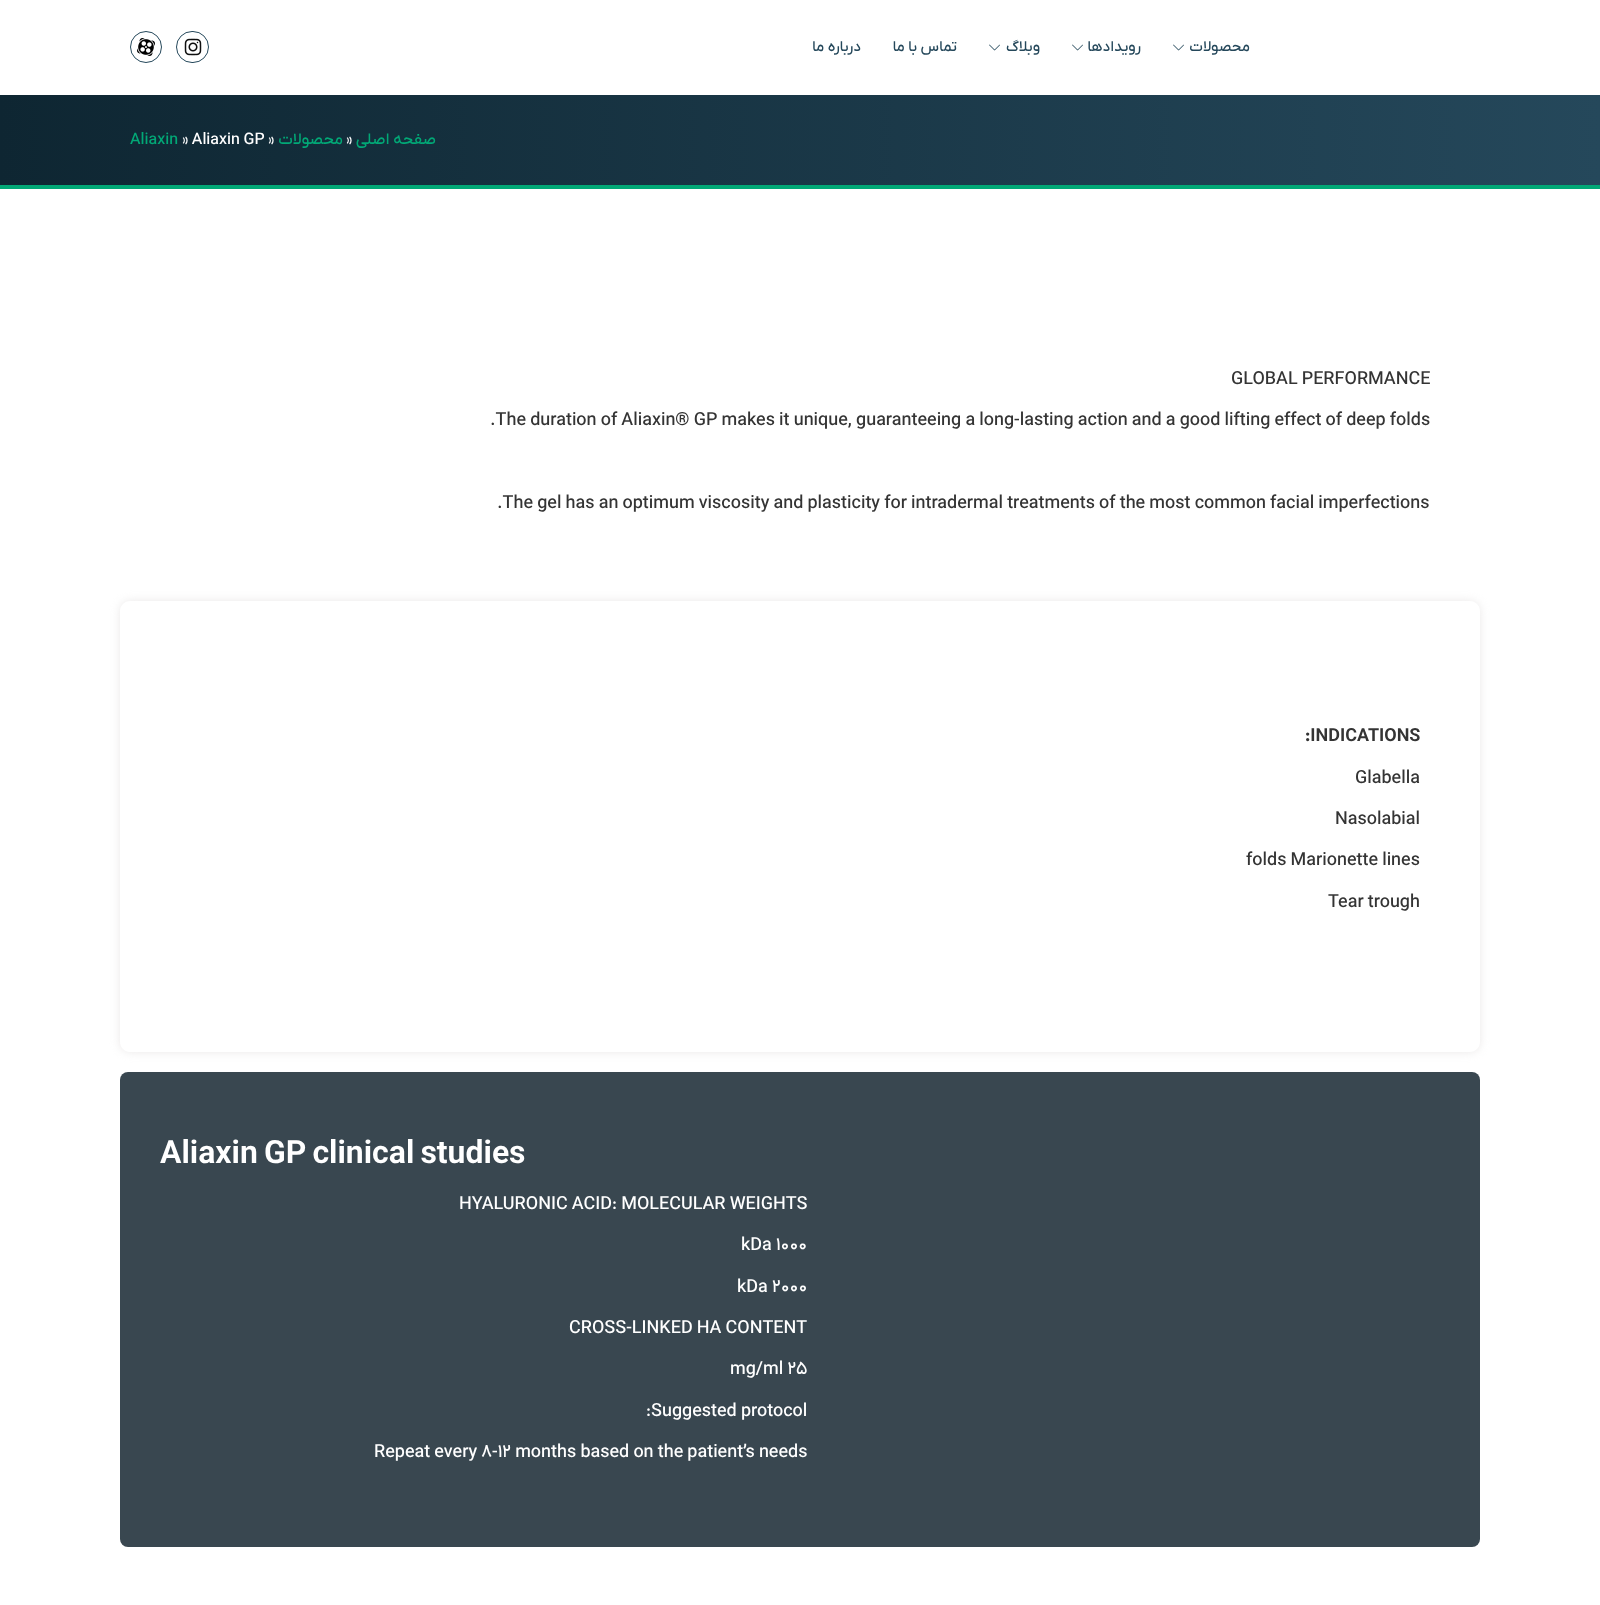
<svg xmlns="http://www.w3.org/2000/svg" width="1600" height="1605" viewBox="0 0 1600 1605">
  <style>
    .t1 { font: 500 15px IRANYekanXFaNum; direction: rtl; fill: #25485b; }
    .t2 { font: 500 16px IRANYekanXFaNum; fill: #02a876; }
    .t3 { font: 500 16px IRANYekanXFaNum; fill: #fff; }
    .t4 { font: 500 16px IRANYekanXFaNum; direction: rtl; fill: #02a876; }
    .t5 { font: 500 18px IRANYekanXFaNum; fill: #343434; }
    .t6 { font: bold 18px IRANYekanXFaNum; fill: #343434; }
    .t7 { font: bold 32px IRANYekanXFaNum; fill: #fff; }
    .t8 { font: 500 18px IRANYekanXFaNum; fill: #fff; }
  </style>
  <defs>
    <linearGradient id="g1" gradientUnits="userSpaceOnUse" x1="0" y1="140" x2="1600" y2="140"><stop offset="0" stop-color="#0e2632"/><stop offset="1" stop-color="#25485b"/></linearGradient>
    <clipPath id="clip1"><path d="M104 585H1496V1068H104ZM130 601H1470C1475.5 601 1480 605.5 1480 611V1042C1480 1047.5 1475.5 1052 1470 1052H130C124.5 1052 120 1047.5 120 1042V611C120 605.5 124.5 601 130 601Z" clip-rule="evenodd"/></clipPath>
  </defs>
  <rect width="100%" height="100%" fill="#fff"/>
  <circle cx="146" cy="47" r="15.5" fill="none" stroke="#25485b"/>
  <image x="137" y="38" width="18" height="18" href="images/1.png"/>
  <rect x="176.5" y="31.5" width="32" height="31" rx="15.5" fill="none" stroke="#25485b"/>
  <image x="184" y="38" width="18" height="18" href="images/2.png"/>
  <text x="861" y="51" class="t1">درباره ما</text>
  <text x="957" y="51" class="t1">تماس با ما</text>
  <image x="989" y="44" width="11" height="7" href="images/3.png"/>
  <text x="1040" y="51" class="t1">وبلاگ</text>
  <image x="1072" y="44" width="11" height="7" href="images/3.png"/>
  <text x="1141" y="51" class="t1">رویدادها</text>
  <image x="1173" y="44" width="11" height="7" href="images/3.png"/>
  <text x="1250" y="51" class="t1">محصولات</text>
  <rect x="0" y="95" width="1600" height="90" fill="url(#g1)"/>
  <rect x="0" y="185" width="1600" height="4" fill="#02a876"/>
  <text x="130" y="144" class="t2">Aliaxin</text>
  <text x="182" y="144" class="t3">» Aliaxin GP</text>
  <text x="268" y="144" class="t3">»</text>
  <text x="343" y="144" class="t4">محصولات</text>
  <text x="346" y="144" class="t3">»</text>
  <text x="436" y="144" class="t4">صفحه اصلی</text>
  <text x="1231" y="384" class="t5">GLOBAL PERFORMANCE</text>
  <text x="490" y="425" class="t5">.The duration of Aliaxin® GP makes it unique, guaranteeing a long-lasting action and a good lifting effect of deep folds</text>
  <text x="497" y="508" class="t5">.The gel has an optimum viscosity and plasticity for intradermal treatments of the most common facial imperfections</text>
  <g clip-path="url(#clip1)">
    <rect x="120" y="601" width="1360" height="451" rx="10" fill="#d5d1d180" filter="blur(5px)"/>
  </g>
  <text x="1305" y="741" class="t6">:INDICATIONS</text>
  <text x="1355" y="783" class="t5">Glabella</text>
  <text x="1335" y="824" class="t5">Nasolabial</text>
  <text x="1246" y="865" class="t5">folds Marionette lines</text>
  <text x="1328" y="907" class="t5">Tear trough</text>
  <rect x="120" y="1072" width="1360" height="475" rx="8" fill="#394750"/>
  <text x="160" y="1163" class="t7">Aliaxin GP clinical studies</text>
  <text x="459" y="1209" class="t8">HYALURONIC ACID: MOLECULAR WEIGHTS</text>
  <text x="741" y="1250" class="t8">kDa ۱۰۰۰</text>
  <text x="737" y="1292" class="t8">kDa ۲۰۰۰</text>
  <text x="569" y="1333" class="t8">CROSS-LINKED HA CONTENT</text>
  <text x="730" y="1374" class="t8">mg/ml ۲۵</text>
  <text x="646" y="1416" class="t8">:Suggested protocol</text>
  <text x="374" y="1457" class="t8">Repeat every 8-12 months based on the patient’s needs</text>
</svg>
